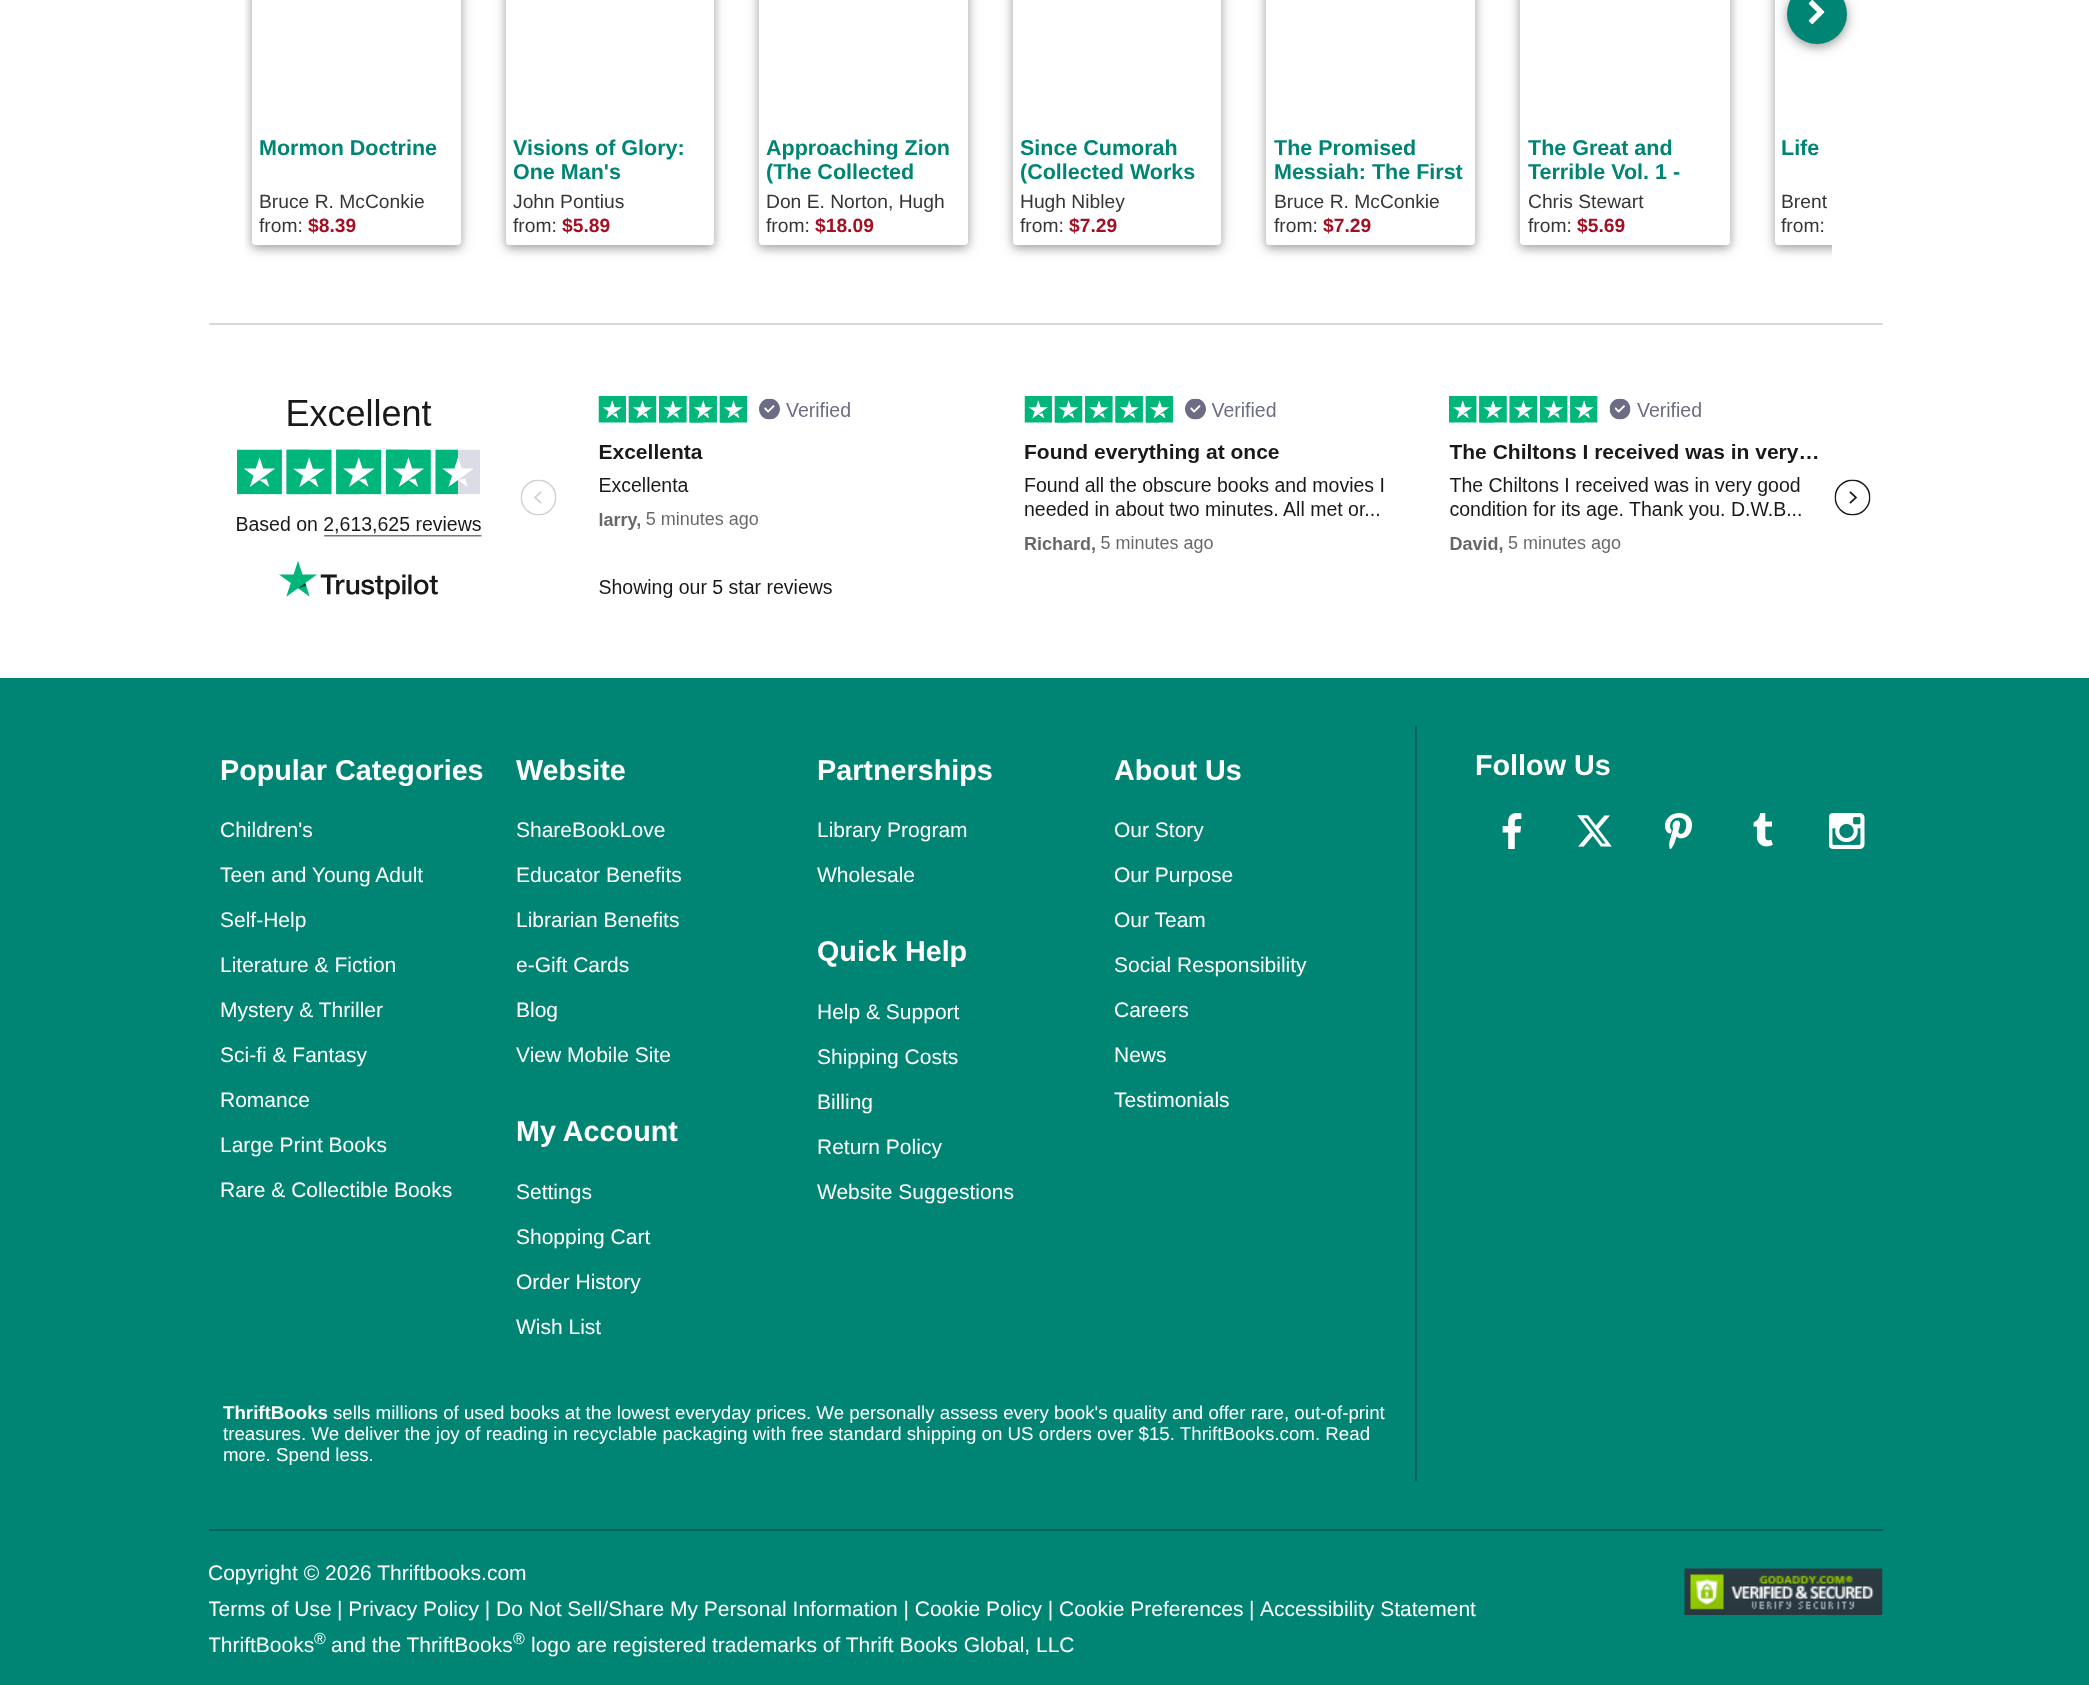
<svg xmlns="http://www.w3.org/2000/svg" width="2089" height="1685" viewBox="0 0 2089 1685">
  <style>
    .t1 { font: bold 21.5px Liberation Sans; fill: #008575; }
    .t2 { font: 19.25px Liberation Sans; fill: #363636; }
    .t3 { font: bold 19.25px Liberation Sans; fill: #a31023; }
    .t4 { font: bold 28.75px Liberation Sans; fill: #fff; }
    .t5 { font: 21px Liberation Sans; fill: #fff; }
    .t6 { font: bold 18.72px Liberation Sans; fill: #fff; }
    .t7 { font: 18.72px Liberation Sans; fill: #fff; }
    .t8 { font: 16px Liberation Sans; fill: #fff; }
  </style>
  <defs>
    <clipPath id="clip1"><rect x="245" y="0" width="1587" height="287"/></clipPath>
    <clipPath id="clip2"><path d="M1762 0H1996V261H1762ZM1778-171H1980C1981.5-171 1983-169.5 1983-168V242C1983 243.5 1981.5 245 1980 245H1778C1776.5 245 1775 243.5 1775 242V-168C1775-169.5 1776.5-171 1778-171Z" clip-rule="evenodd"/></clipPath>
    <clipPath id="clip3"><path d="M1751 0H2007V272H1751ZM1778-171H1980C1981.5-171 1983-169.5 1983-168V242C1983 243.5 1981.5 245 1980 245H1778C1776.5 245 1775 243.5 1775 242V-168C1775-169.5 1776.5-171 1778-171Z" clip-rule="evenodd"/></clipPath>
    <clipPath id="clip4"><path d="M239 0H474V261H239ZM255-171H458C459.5-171 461-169.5 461-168V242C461 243.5 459.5 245 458 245H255C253.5 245 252 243.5 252 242V-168C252-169.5 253.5-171 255-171Z" clip-rule="evenodd"/></clipPath>
    <clipPath id="clip5"><path d="M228 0H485V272H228ZM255-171H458C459.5-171 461-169.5 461-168V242C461 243.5 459.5 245 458 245H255C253.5 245 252 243.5 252 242V-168C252-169.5 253.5-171 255-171Z" clip-rule="evenodd"/></clipPath>
    <clipPath id="clip6"><path d="M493 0H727V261H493ZM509-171H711C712.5-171 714-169.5 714-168V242C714 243.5 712.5 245 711 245H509C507.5 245 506 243.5 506 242V-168C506-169.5 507.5-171 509-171Z" clip-rule="evenodd"/></clipPath>
    <clipPath id="clip7"><path d="M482 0H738V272H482ZM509-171H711C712.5-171 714-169.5 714-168V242C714 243.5 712.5 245 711 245H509C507.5 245 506 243.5 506 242V-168C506-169.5 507.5-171 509-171Z" clip-rule="evenodd"/></clipPath>
    <clipPath id="clip8"><path d="M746 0H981V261H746ZM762-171H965C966.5-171 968-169.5 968-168V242C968 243.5 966.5 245 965 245H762C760.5 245 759 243.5 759 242V-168C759-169.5 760.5-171 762-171Z" clip-rule="evenodd"/></clipPath>
    <clipPath id="clip9"><path d="M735 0H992V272H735ZM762-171H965C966.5-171 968-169.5 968-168V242C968 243.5 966.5 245 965 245H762C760.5 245 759 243.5 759 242V-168C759-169.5 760.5-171 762-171Z" clip-rule="evenodd"/></clipPath>
    <clipPath id="clip10"><path d="M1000 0H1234V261H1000ZM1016-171H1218C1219.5-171 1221-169.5 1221-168V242C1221 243.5 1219.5 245 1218 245H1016C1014.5 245 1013 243.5 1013 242V-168C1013-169.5 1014.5-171 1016-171Z" clip-rule="evenodd"/></clipPath>
    <clipPath id="clip11"><path d="M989 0H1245V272H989ZM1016-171H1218C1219.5-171 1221-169.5 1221-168V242C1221 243.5 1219.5 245 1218 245H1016C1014.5 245 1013 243.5 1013 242V-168C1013-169.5 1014.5-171 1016-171Z" clip-rule="evenodd"/></clipPath>
    <clipPath id="clip12"><path d="M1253 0H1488V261H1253ZM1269-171H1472C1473.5-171 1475-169.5 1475-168V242C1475 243.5 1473.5 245 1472 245H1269C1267.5 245 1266 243.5 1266 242V-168C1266-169.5 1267.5-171 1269-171Z" clip-rule="evenodd"/></clipPath>
    <clipPath id="clip13"><path d="M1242 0H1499V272H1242ZM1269-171H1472C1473.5-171 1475-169.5 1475-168V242C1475 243.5 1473.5 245 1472 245H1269C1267.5 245 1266 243.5 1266 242V-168C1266-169.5 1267.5-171 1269-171Z" clip-rule="evenodd"/></clipPath>
    <clipPath id="clip14"><path d="M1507 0H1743V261H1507ZM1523-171H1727C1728.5-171 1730-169.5 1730-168V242C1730 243.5 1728.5 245 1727 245H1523C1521.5 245 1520 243.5 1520 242V-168C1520-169.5 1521.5-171 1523-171Z" clip-rule="evenodd"/></clipPath>
    <clipPath id="clip15"><path d="M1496 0H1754V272H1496ZM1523-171H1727C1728.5-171 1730-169.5 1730-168V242C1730 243.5 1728.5 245 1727 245H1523C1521.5 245 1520 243.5 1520 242V-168C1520-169.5 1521.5-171 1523-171Z" clip-rule="evenodd"/></clipPath>
    <clipPath id="clip16"><rect x="209" y="1530" width="1674" height="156"/></clipPath>
  </defs>
  <rect width="100%" height="100%" fill="#fff"/>
  <rect x="1787" y="-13" width="60" height="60" rx="30" fill="#00000042" filter="blur(4px)"/>
  <rect x="1787" y="-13" width="60" height="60" rx="30" fill="#00000029" filter="blur(7.5px)"/>
  <g clip-path="url(#clip1)">
    <g clip-path="url(#clip2)">
      <rect x="1775" y="-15" width="208" height="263" rx="3" fill="#00000042" filter="blur(4px)"/>
    </g>
  </g>
  <g clip-path="url(#clip1)">
    <g clip-path="url(#clip3)">
      <rect x="1775" y="-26" width="208" height="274" rx="3" fill="#00000029" filter="blur(7.5px)"/>
    </g>
  </g>
  <circle cx="1817" cy="14" r="30" fill="#008575"/>
  <image x="1808" y="0" width="17" height="24" href="images/1.png"/>
  <g clip-path="url(#clip4)">
    <rect x="252" y="-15" width="209" height="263" rx="3" fill="#00000042" filter="blur(4px)"/>
  </g>
  <g clip-path="url(#clip1)">
    <g clip-path="url(#clip5)">
      <rect x="252" y="-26" width="209" height="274" rx="3" fill="#00000029" filter="blur(7.5px)"/>
    </g>
  </g>
  <text x="259" y="155" class="t1">Mormon Doctrine</text>
  <text x="259" y="208" class="t2">Bruce R. McConkie</text>
  <text x="259" y="232" class="t2">from:</text>
  <text x="308" y="232" class="t3">$8.39</text>
  <g clip-path="url(#clip6)">
    <rect x="506" y="-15" width="208" height="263" rx="3" fill="#00000042" filter="blur(4px)"/>
  </g>
  <g clip-path="url(#clip7)">
    <rect x="506" y="-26" width="208" height="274" rx="3" fill="#00000029" filter="blur(7.5px)"/>
  </g>
  <text x="513" y="155" class="t1">Visions of Glory:</text>
  <text x="513" y="179" class="t1">One Man's</text>
  <text x="513" y="208" class="t2">John Pontius</text>
  <text x="513" y="232" class="t2">from:</text>
  <text x="562" y="232" class="t3">$5.89</text>
  <g clip-path="url(#clip8)">
    <rect x="759" y="-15" width="209" height="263" rx="3" fill="#00000042" filter="blur(4px)"/>
  </g>
  <g clip-path="url(#clip9)">
    <rect x="759" y="-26" width="209" height="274" rx="3" fill="#00000029" filter="blur(7.5px)"/>
  </g>
  <text x="766" y="155" class="t1">Approaching Zion</text>
  <text x="766" y="179" class="t1">(The Collected</text>
  <text x="766" y="208" class="t2">Don E. Norton, Hugh</text>
  <text x="766" y="232" class="t2">from:</text>
  <text x="815" y="232" class="t3">$18.09</text>
  <g clip-path="url(#clip10)">
    <rect x="1013" y="-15" width="208" height="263" rx="3" fill="#00000042" filter="blur(4px)"/>
  </g>
  <g clip-path="url(#clip11)">
    <rect x="1013" y="-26" width="208" height="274" rx="3" fill="#00000029" filter="blur(7.5px)"/>
  </g>
  <text x="1020" y="155" class="t1">Since Cumorah</text>
  <text x="1020" y="179" class="t1">(Collected Works</text>
  <text x="1020" y="208" class="t2">Hugh Nibley</text>
  <text x="1020" y="232" class="t2">from:</text>
  <text x="1069" y="232" class="t3">$7.29</text>
  <g clip-path="url(#clip12)">
    <rect x="1266" y="-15" width="209" height="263" rx="3" fill="#00000042" filter="blur(4px)"/>
  </g>
  <g clip-path="url(#clip13)">
    <rect x="1266" y="-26" width="209" height="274" rx="3" fill="#00000029" filter="blur(7.5px)"/>
  </g>
  <text x="1274" y="155" class="t1">The Promised</text>
  <text x="1274" y="179" class="t1">Messiah: The First</text>
  <text x="1274" y="208" class="t2">Bruce R. McConkie</text>
  <text x="1274" y="232" class="t2">from:</text>
  <text x="1323" y="232" class="t3">$7.29</text>
  <g clip-path="url(#clip14)">
    <rect x="1520" y="-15" width="210" height="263" rx="3" fill="#00000042" filter="blur(4px)"/>
  </g>
  <g clip-path="url(#clip15)">
    <rect x="1520" y="-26" width="210" height="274" rx="3" fill="#00000029" filter="blur(7.5px)"/>
  </g>
  <text x="1528" y="155" class="t1">The Great and</text>
  <text x="1528" y="179" class="t1">Terrible Vol. 1 -</text>
  <text x="1528" y="208" class="t2">Chris Stewart</text>
  <text x="1528" y="232" class="t2">from:</text>
  <text x="1577" y="232" class="t3">$5.69</text>
  <text x="1781" y="155" class="t1">Life</text>
  <text x="1781" y="208" class="t2">Brent</text>
  <text x="1781" y="232" class="t2">from:</text>
  <rect x="209" y="323" width="1674" height="2" rx="1" fill="#d7d7d7"/>
  <image x="237" y="396" width="1634" height="204" href="images/2.png"/>
  <rect x="0" y="678" width="2089" height="1007" fill="#008575"/>
  <text x="220" y="780" class="t4">Popular Categories</text>
  <text x="220" y="837" class="t5">Children's</text>
  <text x="220" y="882" class="t5">Teen and Young Adult</text>
  <text x="220" y="927" class="t5">Self-Help</text>
  <text x="220" y="972" class="t5">Literature &amp; Fiction</text>
  <text x="220" y="1017" class="t5">Mystery &amp; Thriller</text>
  <text x="220" y="1062" class="t5">Sci-fi &amp; Fantasy</text>
  <text x="220" y="1107" class="t5">Romance</text>
  <text x="220" y="1152" class="t5">Large Print Books</text>
  <text x="220" y="1197" class="t5">Rare &amp; Collectible Books</text>
  <text x="516" y="780" class="t4">Website</text>
  <text x="516" y="837" class="t5">ShareBookLove</text>
  <text x="516" y="882" class="t5">Educator Benefits</text>
  <text x="516" y="927" class="t5">Librarian Benefits</text>
  <text x="516" y="972" class="t5">e-Gift Cards</text>
  <text x="516" y="1017" class="t5">Blog</text>
  <text x="516" y="1062" class="t5">View Mobile Site</text>
  <text x="516" y="1141" class="t4">My Account</text>
  <text x="516" y="1199" class="t5">Settings</text>
  <text x="516" y="1244" class="t5">Shopping Cart</text>
  <text x="516" y="1289" class="t5">Order History</text>
  <text x="516" y="1334" class="t5">Wish List</text>
  <text x="817" y="780" class="t4">Partnerships</text>
  <text x="817" y="837" class="t5">Library Program</text>
  <text x="817" y="882" class="t5">Wholesale</text>
  <text x="817" y="961" class="t4">Quick Help</text>
  <text x="817" y="1019" class="t5">Help &amp; Support</text>
  <text x="817" y="1064" class="t5">Shipping Costs</text>
  <text x="817" y="1109" class="t5">Billing</text>
  <text x="817" y="1154" class="t5">Return Policy</text>
  <text x="817" y="1199" class="t5">Website Suggestions</text>
  <text x="1114" y="780" class="t4">About Us</text>
  <text x="1114" y="837" class="t5">Our Story</text>
  <text x="1114" y="882" class="t5">Our Purpose</text>
  <text x="1114" y="927" class="t5">Our Team</text>
  <text x="1114" y="972" class="t5">Social Responsibility</text>
  <text x="1114" y="1017" class="t5">Careers</text>
  <text x="1114" y="1062" class="t5">News</text>
  <text x="1114" y="1107" class="t5">Testimonials</text>
  <text x="223" y="1419" class="t6">ThriftBooks</text>
  <text x="333" y="1419" class="t7">sells millions of used books at the lowest</text>
  <text x="675" y="1419" class="t7">everyday prices. We personally assess every book's quality and offer rare, out-of-print</text>
  <text x="223" y="1440" class="t7">treasures. We deliver the joy of reading in recyclable packaging with free standard shipping on US orders over $15. ThriftBooks.com. Read</text>
  <text x="223" y="1461" class="t7">more. Spend less.</text>
  <rect x="1415" y="726" width="2" height="755" fill="#006458"/>
  <text x="1475" y="775" class="t4">Follow Us</text>
  <image x="1502" y="813" width="20" height="36" href="images/3.png"/>
  <image x="1577" y="815" width="35" height="32" href="images/4.png"/>
  <image x="1664" y="813" width="29" height="36" href="images/5.png"/>
  <image x="1753" y="813" width="20" height="34" href="images/6.png"/>
  <image x="1829" y="813" width="36" height="36" href="images/7.png"/>
  <rect x="209" y="1529" width="1674" height="2" fill="#006458"/>
  <g clip-path="url(#clip16)">
    <text x="208" y="1580" class="t5">Copyright © 2026 Thriftbooks.com</text>
    <text x="208" y="1616" class="t5">Terms of Use</text>
  </g>
  <text x="337" y="1616" class="t5">| Privacy Policy | Do Not Sell/Share My Personal Information | Cookie Policy | Cookie Preferences</text>
  <text x="1249" y="1616" class="t5">|</text>
  <text x="1260" y="1616" class="t5">Accessibility Statement</text>
  <g clip-path="url(#clip16)">
    <text x="208" y="1652" class="t5">ThriftBooks</text>
  </g>
  <text x="314" y="1644" class="t8">®</text>
  <text x="331" y="1652" class="t5">and the ThriftBooks</text>
  <text x="513" y="1644" class="t8">®</text>
  <text x="531" y="1652" class="t5">logo are registered trademarks of Thrift Books Global, LLC</text>
  <image x="1684" y="1568" width="199" height="47" href="images/8.png"/>
</svg>
